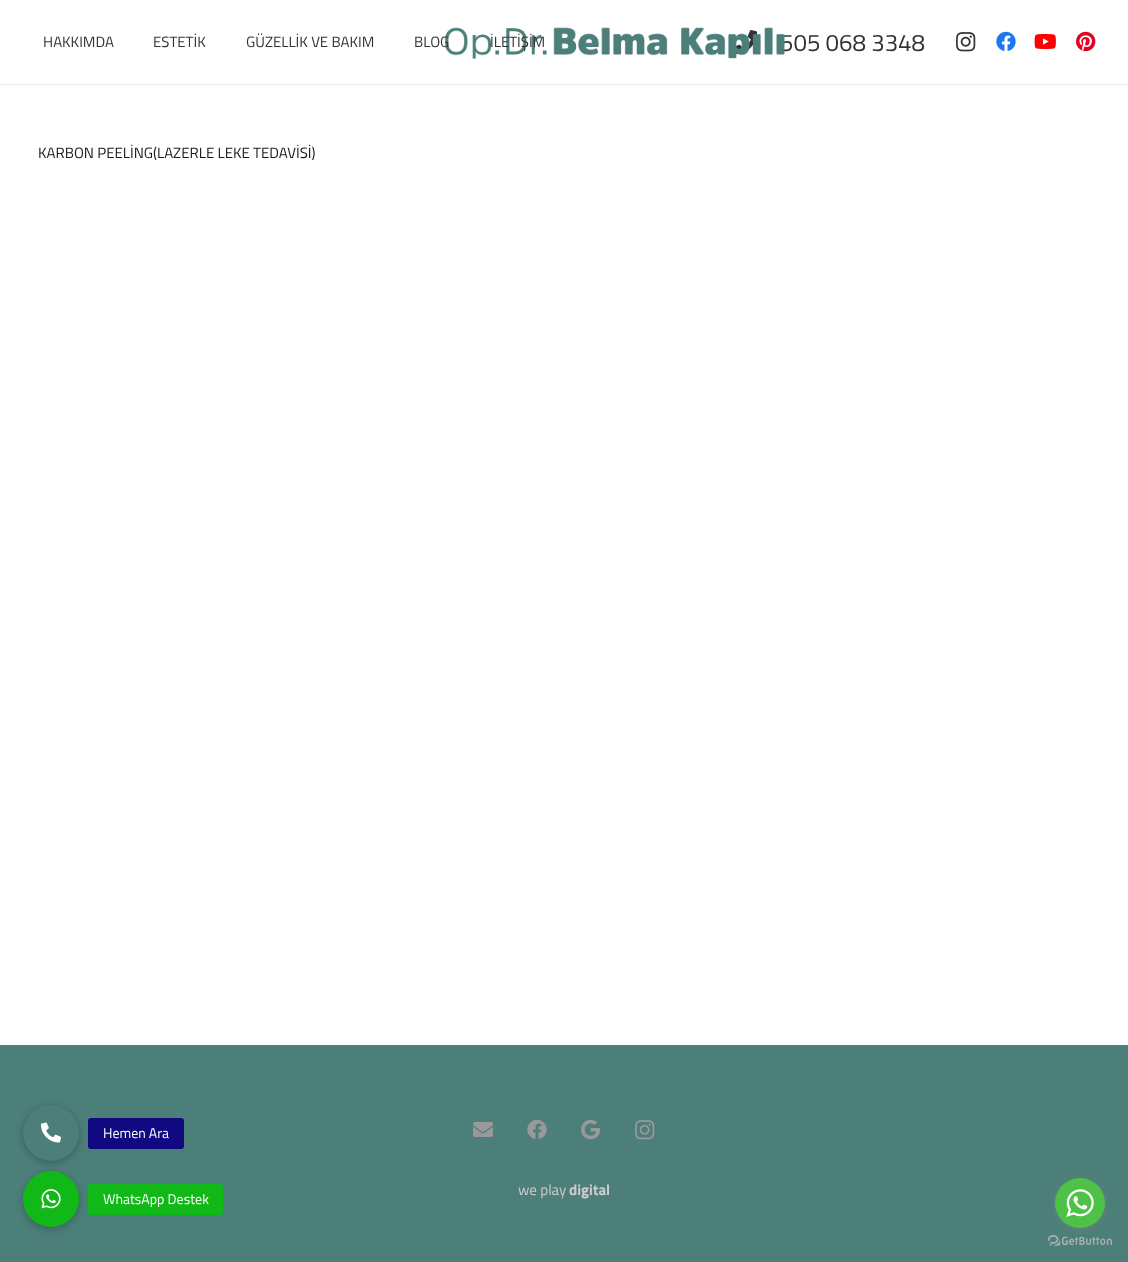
<svg xmlns="http://www.w3.org/2000/svg" width="1128" height="1262" viewBox="0 0 1128 1262">
  <style>
    .t1 { font: 15px Titillium Web; fill: #333; }
    .t2 { font: 24px Titillium Web; fill: #333; }
    .t3 { font: 15px Titillium Web; fill: #1a1a1a; }
    .t4 { font: 14px Titillium Web; fill: #fff; }
    .t5 { font: 15px Titillium Web; fill: #ccc; }
    .t6 { font: bold 15px Titillium Web; fill: #ccc; }
  </style>
  <rect width="100%" height="100%" fill="#fff"/>
  <rect x="0" y="84" width="1128" height="1" fill="#ebebeb"/>
  <text x="43" y="47" class="t1">HAKKIMDA</text>
  <text x="153" y="47" class="t1">ESTETİK</text>
  <text x="246" y="47" class="t1">GÜZELLİK VE BAKIM</text>
  <image x="735" y="30" width="23" height="24" href="images/2.png"/>
  <text x="780" y="51" class="t2">505 068 3348</text>
  <image x="444" y="27" width="341" height="32" href="images/1.png"/>
  <text x="414" y="47" class="t1">BLOG</text>
  <text x="490" y="47" class="t1">İLETİŞİM</text>
  <image x="956" y="32" width="20" height="20" href="images/3.png"/>
  <image x="996" y="31" width="20" height="20" href="images/4.png"/>
  <image x="1034" y="34" width="22" height="15" href="images/5.png"/>
  <image x="1076" y="31" width="20" height="21" href="images/6.png"/>
  <text x="38" y="158" class="t3">KARBON PEELİNG(LAZERLE LEKE TEDAVİSİ)</text>
  <rect x="0" y="1045" width="1128" height="217" fill="#4c7f79"/>
  <rect x="22" y="1172" width="58" height="58" rx="29" fill="#00000033" filter="blur(3px)"/>
  <circle cx="51" cy="1199" r="28" fill="#11b918"/>
  <rect x="22" y="1106" width="58" height="58" rx="29" fill="#00000033" filter="blur(3px)"/>
  <circle cx="51" cy="1133" r="28" fill="#4c7f79"/>
  <image x="41" y="1122" width="20" height="21" href="images/7.png"/>
  <rect x="88" y="1118" width="96" height="31" rx="3" fill="#100981"/>
  <text x="103" y="1138" class="t4">Hemen Ara</text>
  <image x="41" y="1189" width="20" height="20" href="images/8.png"/>
  <rect x="88" y="1184" width="135" height="31" rx="3" fill="#11b918"/>
  <text x="103" y="1204" class="t4">WhatsApp Destek</text>
  <image x="473" y="1122" width="20" height="15" href="images/9.png"/>
  <image x="527" y="1119" width="20" height="20" href="images/10.png"/>
  <image x="581" y="1119" width="19" height="21" href="images/11.png"/>
  <image x="635" y="1120" width="20" height="20" href="images/12.png"/>
  <text x="518" y="1195" class="t5">we play</text>
  <text x="569" y="1195" class="t6">digital</text>
  <image x="1048" y="1235" width="64" height="11" href="images/14.png"/>
  <rect x="1055" y="1179" width="50" height="50" rx="25" fill="#88888866" filter="blur(3.5px)"/>
  <circle cx="1080" cy="1203" r="25" fill="#4dc247"/>
  <image x="1066" y="1189" width="28" height="28" href="images/13.png"/>
</svg>
